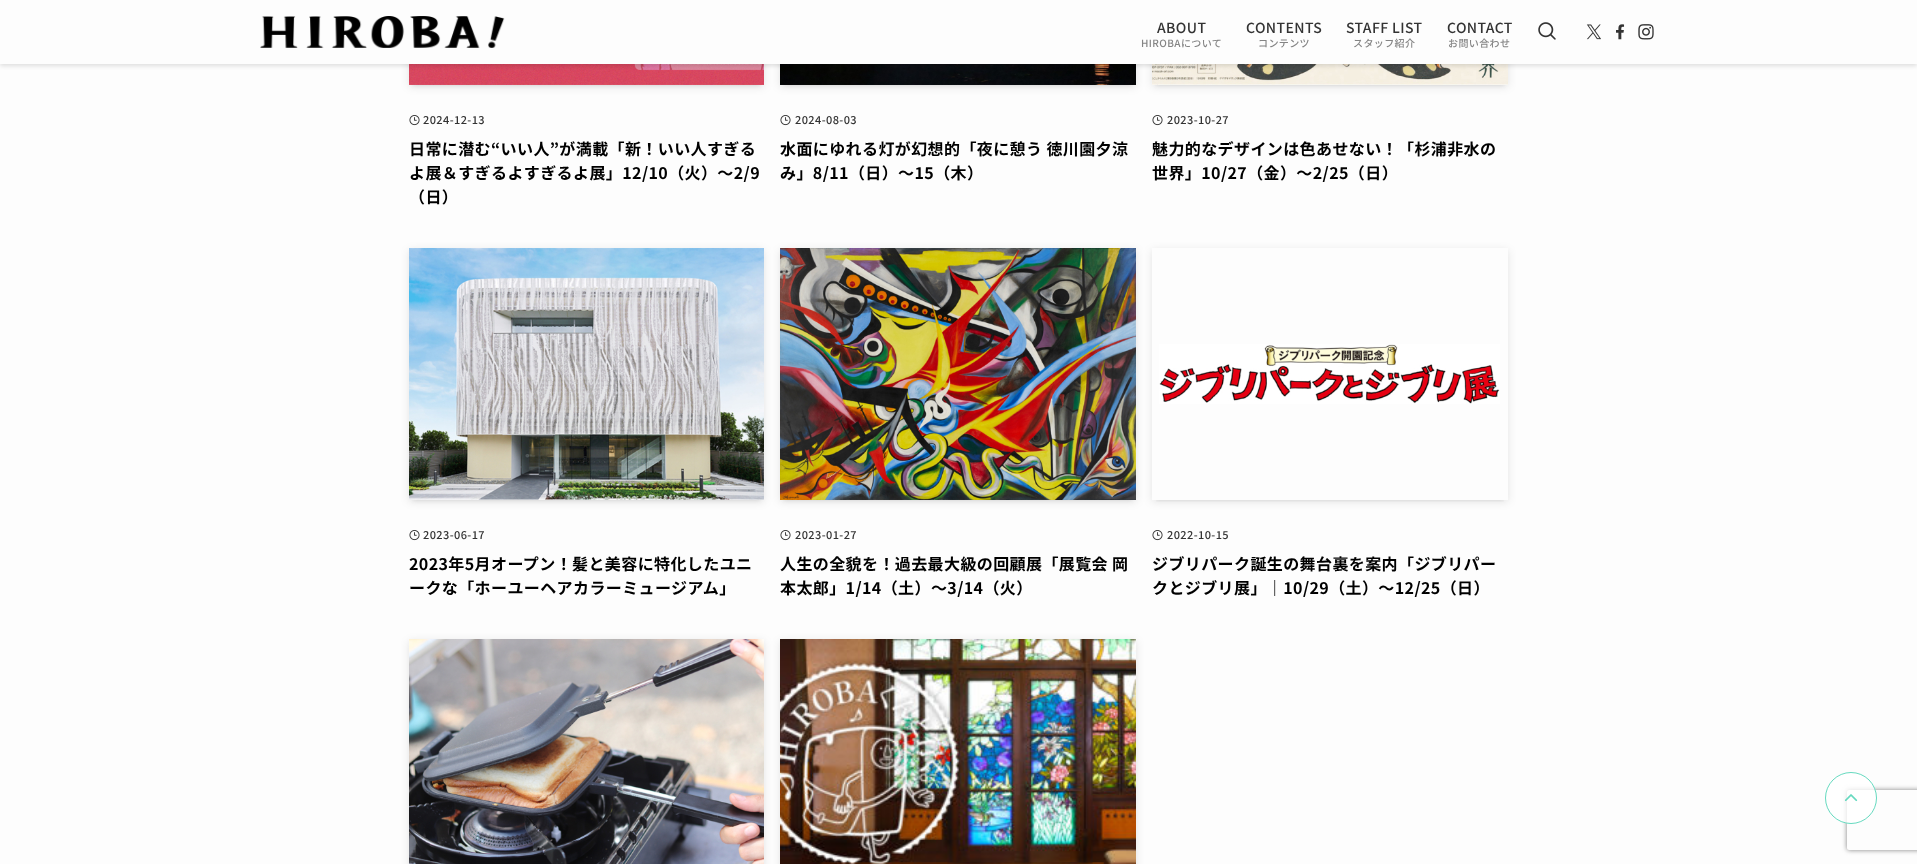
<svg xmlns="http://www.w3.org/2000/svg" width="1917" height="864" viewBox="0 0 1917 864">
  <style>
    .t1 { font: 500 14px Noto Sans JP; letter-spacing: 0.4px; fill: #333; }
    .t2 { font: 500 10px Noto Sans JP; letter-spacing: 0.4px; fill: #848484; }
    .t3 { font: 500 11px Noto Sans JP; letter-spacing: 0.4px; fill: #333; }
    .t4 { font: bold 16px Noto Sans JP; letter-spacing: 0.4px; fill: #000; }
  </style>
  <defs>
    <clipPath id="clip1"><rect x="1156" y="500" width="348" height="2"/></clipPath>
    <clipPath id="clip2"><path d="M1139 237H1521V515H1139ZM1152 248H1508V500H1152Z" clip-rule="evenodd"/></clipPath>
    <clipPath id="clip3"><path d="M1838 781H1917V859H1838ZM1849 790H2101C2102 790 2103 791 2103 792V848C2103 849 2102 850 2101 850H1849C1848 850 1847 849 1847 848V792C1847 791 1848 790 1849 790Z" clip-rule="evenodd"/></clipPath>
  </defs>
  <rect width="100%" height="100%" fill="#fdfdfd"/>
  <rect x="413" y="-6" width="347" height="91" fill="#0000001a" filter="blur(2px)"/>
  <rect x="409" y="-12" width="355" height="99" fill="#0000001a" filter="blur(4px)"/>
  <image x="409" y="64" width="355" height="21" href="images/6.png"/>
  <rect x="784" y="-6" width="348" height="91" fill="#0000001a" filter="blur(2px)"/>
  <rect x="780" y="-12" width="356" height="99" fill="#0000001a" filter="blur(4px)"/>
  <image x="780" y="64" width="356" height="21" href="images/8.png"/>
  <rect x="1156" y="-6" width="348" height="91" fill="#0000001a" filter="blur(2px)"/>
  <rect x="1152" y="-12" width="356" height="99" fill="#0000001a" filter="blur(4px)"/>
  <image x="1152" y="64" width="356" height="21" href="images/9.png"/>
  <rect x="0" y="2" width="1917" height="64" fill="#0000001f" filter="blur(2px)"/>
  <rect x="0" y="0" width="1917" height="64" fill="#fdfdfd"/>
  <image x="260" y="16" width="245" height="32" href="images/1.png"/>
  <text x="1157" y="33" class="t1">ABOUT</text>
  <text x="1141" y="47" class="t2">HIROBAについて</text>
  <text x="1246" y="33" class="t1">CONTENTS</text>
  <text x="1258" y="47" class="t2">コンテンツ</text>
  <text x="1346" y="33" class="t1">STAFF LIST</text>
  <text x="1353" y="47" class="t2">スタッフ紹介</text>
  <text x="1447" y="33" class="t1">CONTACT</text>
  <text x="1448" y="47" class="t2">お問い合わせ</text>
  <image x="1538" y="22" width="18" height="18" href="images/2.png"/>
  <image x="1586" y="24" width="15" height="16" href="images/3.png"/>
  <image x="1616" y="24" width="9" height="16" href="images/4.png"/>
  <image x="1638" y="24" width="16" height="16" href="images/5.png"/>
  <image x="409" y="115" width="11" height="11" href="images/7.png"/>
  <text x="423" y="124" class="t3">2024-12-13</text>
  <text x="409" y="155" class="t4">日常に潜む“いい人”が満載「新！いい人すぎる</text>
  <text x="409" y="179" class="t4">よ展＆すぎるよすぎるよ展」12/10（火）～2/9</text>
  <text x="409" y="203" class="t4">（日）</text>
  <image x="780" y="115" width="11" height="11" href="images/7.png"/>
  <text x="795" y="124" class="t3">2024-08-03</text>
  <text x="780" y="155" class="t4">水面にゆれる灯が幻想的「夜に憩う 徳川園夕涼</text>
  <text x="780" y="179" class="t4">み」8/11（日）～15（木）</text>
  <image x="1152" y="115" width="11" height="11" href="images/7.png"/>
  <text x="1167" y="124" class="t3">2023-10-27</text>
  <text x="1152" y="155" class="t4">魅力的なデザインは色あせない！「杉浦非水の</text>
  <text x="1152" y="179" class="t4">世界」10/27（金）～2/25（日）</text>
  <rect x="413" y="256" width="347" height="244" fill="#0000001a" filter="blur(2px)"/>
  <rect x="409" y="250" width="355" height="252" fill="#0000001a" filter="blur(4px)"/>
  <image x="409" y="248" width="355" height="252" href="images/10.png"/>
  <image x="409" y="530" width="11" height="11" href="images/7.png"/>
  <text x="423" y="539" class="t3">2023-06-17</text>
  <text x="409" y="570" class="t4">2023年5月オープン！髪と美容に特化したユニ</text>
  <text x="409" y="594" class="t4">ークな「ホーユーヘアカラーミュージアム」</text>
  <rect x="784" y="256" width="348" height="244" fill="#0000001a" filter="blur(2px)"/>
  <rect x="780" y="250" width="356" height="252" fill="#0000001a" filter="blur(4px)"/>
  <image x="780" y="248" width="356" height="252" href="images/11.png"/>
  <image x="780" y="530" width="11" height="11" href="images/7.png"/>
  <text x="795" y="539" class="t3">2023-01-27</text>
  <text x="780" y="570" class="t4">人生の全貌を！過去最大級の回顧展「展覧会 岡</text>
  <text x="780" y="594" class="t4">本太郎」1/14（土）～3/14（火）</text>
  <g clip-path="url(#clip1)">
    <rect x="1156" y="256" width="348" height="244" fill="#0000001a" filter="blur(2px)"/>
  </g>
  <g clip-path="url(#clip2)">
    <rect x="1152" y="250" width="356" height="252" fill="#0000001a" filter="blur(4px)"/>
  </g>
  <image x="1159" y="344" width="341" height="60" href="images/12.png"/>
  <image x="1152" y="530" width="11" height="11" href="images/7.png"/>
  <text x="1167" y="539" class="t3">2022-10-15</text>
  <text x="1152" y="570" class="t4">ジブリパーク誕生の舞台裏を案内「ジブリパー</text>
  <text x="1152" y="594" class="t4">クとジブリ展」｜10/29（土）～12/25（日）</text>
  <rect x="409" y="641" width="355" height="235" fill="#0000001a" filter="blur(4px)"/>
  <image x="409" y="639" width="355" height="225" href="images/13.png"/>
  <rect x="780" y="641" width="356" height="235" fill="#0000001a" filter="blur(4px)"/>
  <image x="780" y="639" width="356" height="225" href="images/14.png"/>
  <g clip-path="url(#clip3)">
    <rect x="1847" y="790" width="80" height="60" rx="2" fill="#808080" filter="blur(2.5px)"/>
  </g>
  <circle cx="1851" cy="798" r="26" fill="#ffffffbf"/>
  <circle cx="1851" cy="798" r="25.5" fill="none" stroke="#33ccaabf"/>
  <image x="1844" y="794" width="14" height="8" href="images/15.png"/>
</svg>
